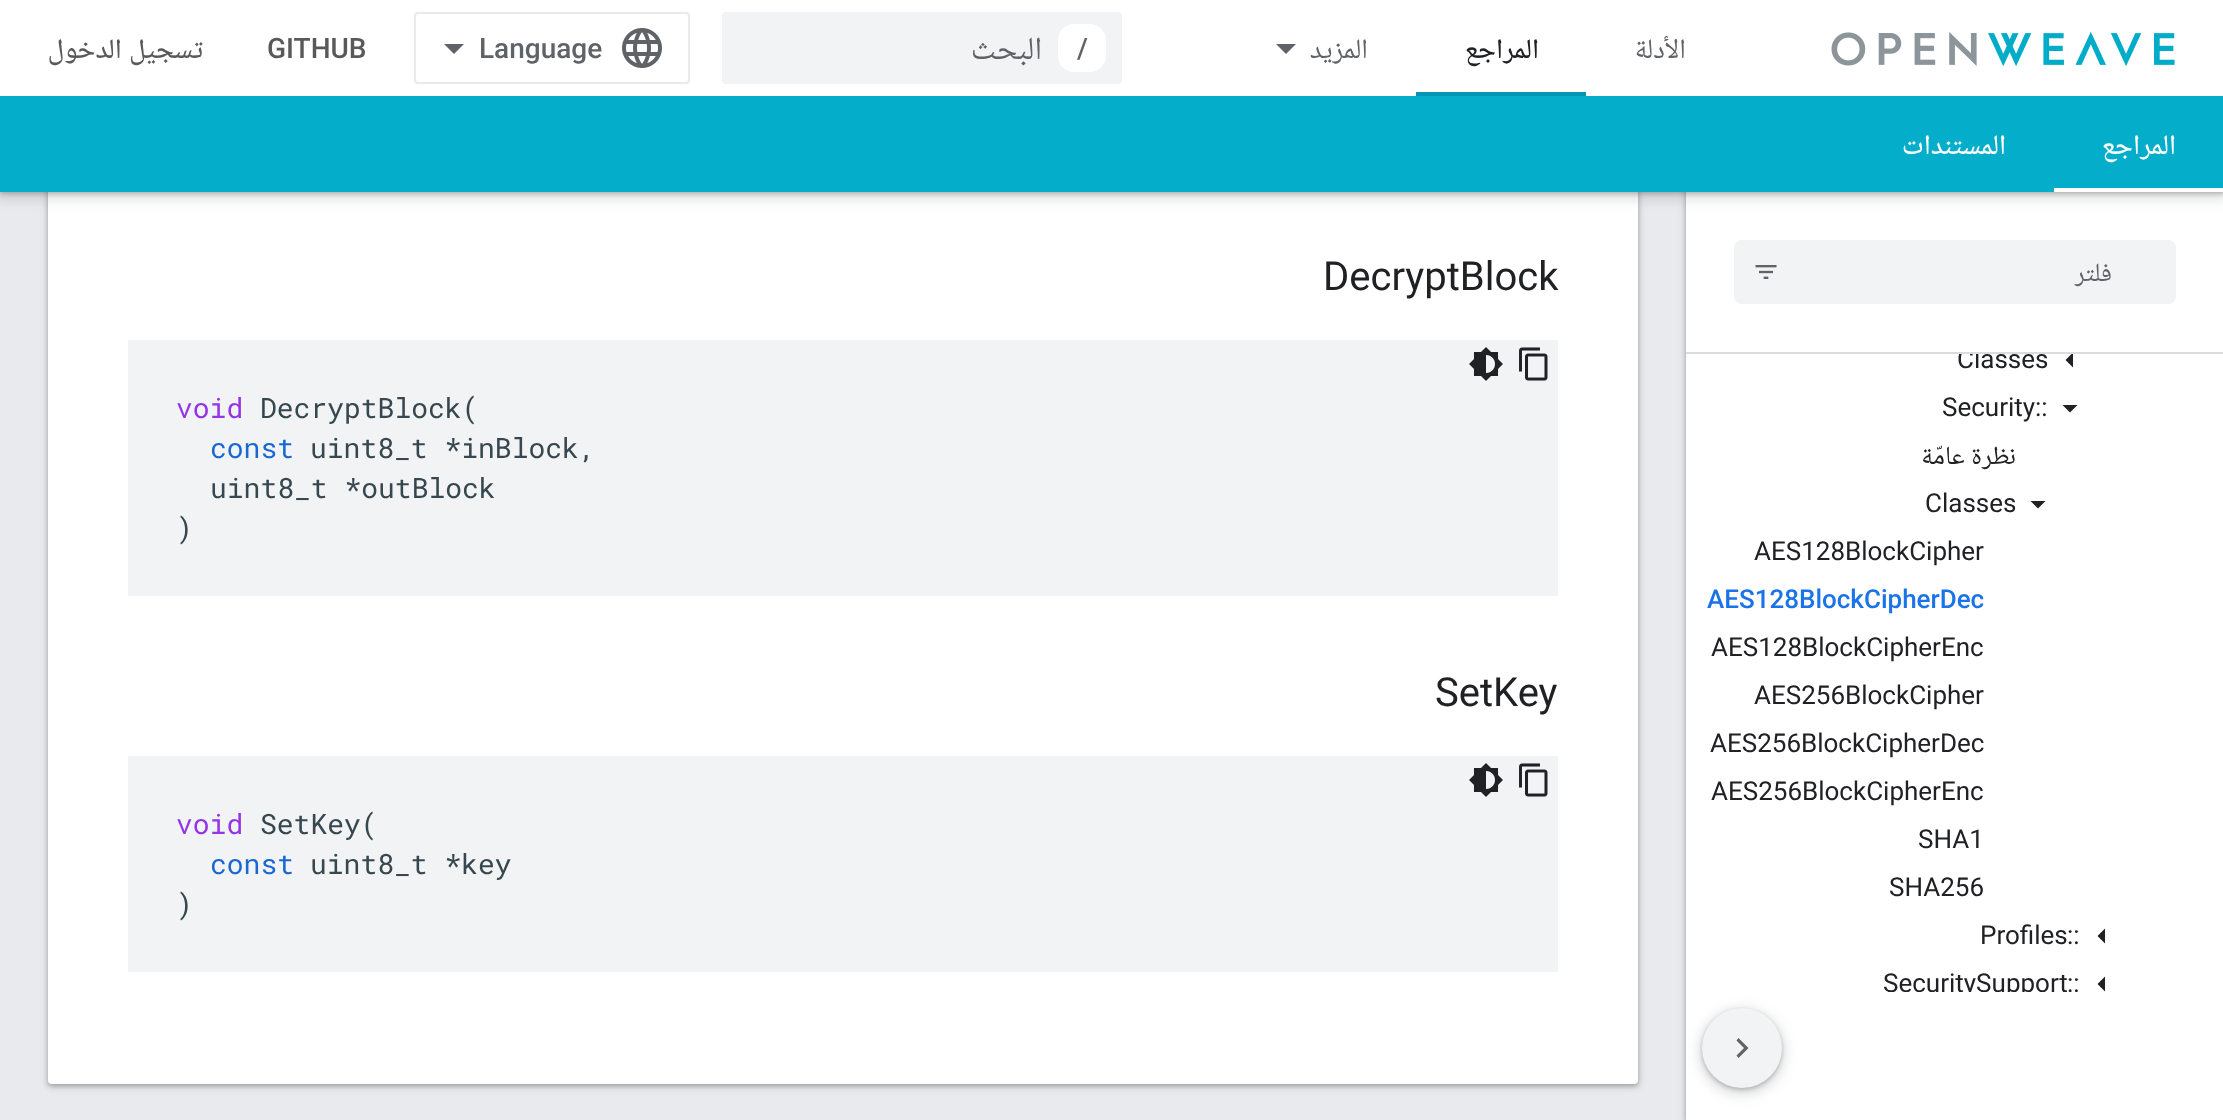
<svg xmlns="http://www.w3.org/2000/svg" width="2223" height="1120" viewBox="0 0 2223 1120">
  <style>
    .t1 { font: 26px Roboto; fill: #202124; }
    .t2 { font: 500 28px Noto Naskh Arabic; direction: rtl; fill: #595959; }
    .t3 { font: 500 28px Roboto; fill: #595959; }
    .t4 { font: 500 28px Roboto; fill: #5f6368; }
    .t5 { font: 32px Noto Naskh Arabic; direction: rtl; fill: #5f6368; }
    .t6 { font: 28px Noto Naskh Arabic; direction: rtl; fill: #5f6368; }
    .t7 { font: 500 28px Noto Naskh Arabic; direction: rtl; fill: #202124; }
    .t8 { font: 500 28px Noto Naskh Arabic; direction: rtl; fill: #fff; }
    .t9 { font: 40px Roboto; fill: #202124; }
    .t10 { font: 28px Roboto Mono; fill: #9334e6; }
    .t11 { font: 28px Roboto Mono; fill: #37474f; }
    .t12 { font: 28px Roboto Mono; fill: #1967d2; }
    .t13 { font: 26px Noto Naskh Arabic; direction: rtl; fill: #5f6368; }
    .t14 { font: 26px Noto Naskh Arabic; direction: rtl; fill: #202124; }
    .t15 { font: 500 26px Roboto; fill: #1a73e8; }
  </style>
  <rect width="100%" height="100%" fill="#e8eaed"/>
  <rect x="1684" y="0" width="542" height="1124" fill="#3c404326" filter="blur(3px)"/>
  <rect x="1686" y="2" width="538" height="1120" fill="#3c40434d" filter="blur(2px)"/>
  <rect x="1686" y="354" width="537" height="638" fill="#fff"/>
  <rect x="46" y="-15" width="1594" height="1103" rx="6" fill="#3c404326" filter="blur(3px)"/>
  <rect x="48" y="-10" width="1590" height="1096" rx="4" fill="#3c40434d" filter="blur(2px)"/>
  <rect x="48" y="-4" width="1590" height="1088" rx="4" fill="#fff"/>
  <text x="1957" y="368" class="t1">Classes</text>
  <rect x="1686" y="192" width="537" height="160" fill="#fff"/>
  <rect x="-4" y="-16" width="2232" height="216" fill="#3c404326" filter="blur(6px)"/>
  <rect x="0" y="-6" width="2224" height="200" fill="#3c40434d" filter="blur(2px)"/>
  <rect x="0" y="0" width="2223" height="96" fill="#fff"/>
  <text x="203" y="58" word-spacing="1" class="t2">تسجيل الدخول</text>
  <text x="267" y="58" class="t3">GITHUB</text>
  <rect x="415" y="13" width="274" height="70" rx="3" fill="none" stroke="#e8eaed" stroke-width="2"/>
  <path d="M454 54L444 44H464Z" fill="#5f6368"/>
  <text x="479" y="58" class="t4">Language</text>
  <image x="622" y="28" width="40" height="40" href="images/1.png"/>
  <rect x="722" y="12" width="400" height="72" rx="4" fill="#f1f3f4"/>
  <text x="1042" y="59" class="t5">البحث</text>
  <rect x="1058" y="24" width="48" height="48" rx="16" fill="#fff"/>
  <text x="1077" y="58" class="t4">/</text>
  <path d="M1276 44H1296L1286 54Z" fill="#5f6368"/>
  <text x="1368" y="58" class="t6">المزيد</text>
  <text x="1539" y="58" class="t7">المراجع</text>
  <rect x="1416" y="92" width="170" height="4" fill="#0293b5"/>
  <text x="1686" y="58" class="t6">الأدلة</text>
  <image x="1831" y="31" width="344" height="36" href="images/2.png"/>
  <rect x="0" y="96" width="2223" height="96" fill="#04adc9"/>
  <text x="2006" y="154" class="t8">المستندات</text>
  <text x="2176" y="154" class="t8">المراجع</text>
  <rect x="2054" y="188" width="169" height="4" fill="#fff"/>
  <text x="1323" y="290" class="t9">DecryptBlock</text>
  <rect x="128" y="340" width="1430" height="256" fill="#f1f3f4"/>
  <image x="1469" y="347" width="34" height="34" href="images/3.png"/>
  <image x="1519" y="347" width="29" height="34" href="images/4.png"/>
  <text x="176" y="418" class="t10">void</text>
  <text x="260" y="418" class="t11">DecryptBlock(</text>
  <text x="210" y="458" class="t12">const</text>
  <text x="310" y="458" class="t11">uint8_t *inBlock,</text>
  <text x="210" y="498" class="t11">uint8_t *outBlock</text>
  <text x="176" y="538" class="t11">)</text>
  <text x="1435" y="706" class="t9">SetKey</text>
  <rect x="128" y="756" width="1430" height="216" fill="#f1f3f4"/>
  <image x="1469" y="763" width="34" height="34" href="images/3.png"/>
  <image x="1519" y="763" width="29" height="34" href="images/4.png"/>
  <text x="176" y="834" class="t10">void</text>
  <text x="260" y="834" class="t11">SetKey(</text>
  <text x="210" y="874" class="t12">const</text>
  <text x="310" y="874" class="t11">uint8_t *key</text>
  <text x="176" y="914" class="t11">)</text>
  <path d="M2073 352.5V367.5L2065.5 360Z" fill="#202124"/>
  <rect x="1686" y="352" width="537" height="2" fill="#dadce0"/>
  <rect x="1734" y="240" width="442" height="64" rx="8" fill="#f1f3f4"/>
  <image x="1755" y="265" width="22" height="14" href="images/5.png"/>
  <text x="2112" y="281" class="t13">فلتر</text>
  <text x="1942" y="416" class="t1">Security</text>
  <text x="2035" y="416" class="t1">::</text>
  <path d="M2062.5 405H2077.5L2070 412.5Z" fill="#202124"/>
  <text x="2016" y="464" word-spacing="1" class="t14">نظرة عامّة</text>
  <text x="1925" y="512" class="t1">Classes</text>
  <path d="M2030.5 501H2045.5L2038 508.5Z" fill="#202124"/>
  <text x="1754" y="560" class="t1">AES128BlockCipher</text>
  <text x="1707" y="608" class="t15">AES128BlockCipherDec</text>
  <text x="1711" y="656" class="t1">AES128BlockCipherEnc</text>
  <text x="1754" y="704" class="t1">AES256BlockCipher</text>
  <text x="1710" y="752" class="t1">AES256BlockCipherDec</text>
  <text x="1711" y="800" class="t1">AES256BlockCipherEnc</text>
  <text x="1918" y="848" class="t1">SHA1</text>
  <text x="1889" y="896" class="t1">SHA256</text>
  <text x="1980" y="944" class="t1">Profiles</text>
  <text x="2067" y="944" class="t1">::</text>
  <path d="M2105 928.5V943.5L2097.5 936Z" fill="#202124"/>
  <text x="1883" y="992" class="t1">SecuritySupport</text>
  <text x="2067" y="992" class="t1">::</text>
  <path d="M2105 976.5V991.5L2097.5 984Z" fill="#202124"/>
  <rect x="1686" y="992" width="537" height="128" fill="#fff"/>
  <rect x="1698" y="1008" width="88" height="88" rx="44" fill="#3c404326" filter="blur(6px)"/>
  <rect x="1702" y="1010" width="80" height="80" rx="40" fill="#3c40434d" filter="blur(2px)"/>
  <circle cx="1742" cy="1048" r="40" fill="#f1f3f4"/>
  <path d="M1738.5 1038L1748.5 1048L1738.5 1058L1736.5 1055.5L1744 1048L1736.5 1040.5Z" fill="#5f6368"/>
</svg>
